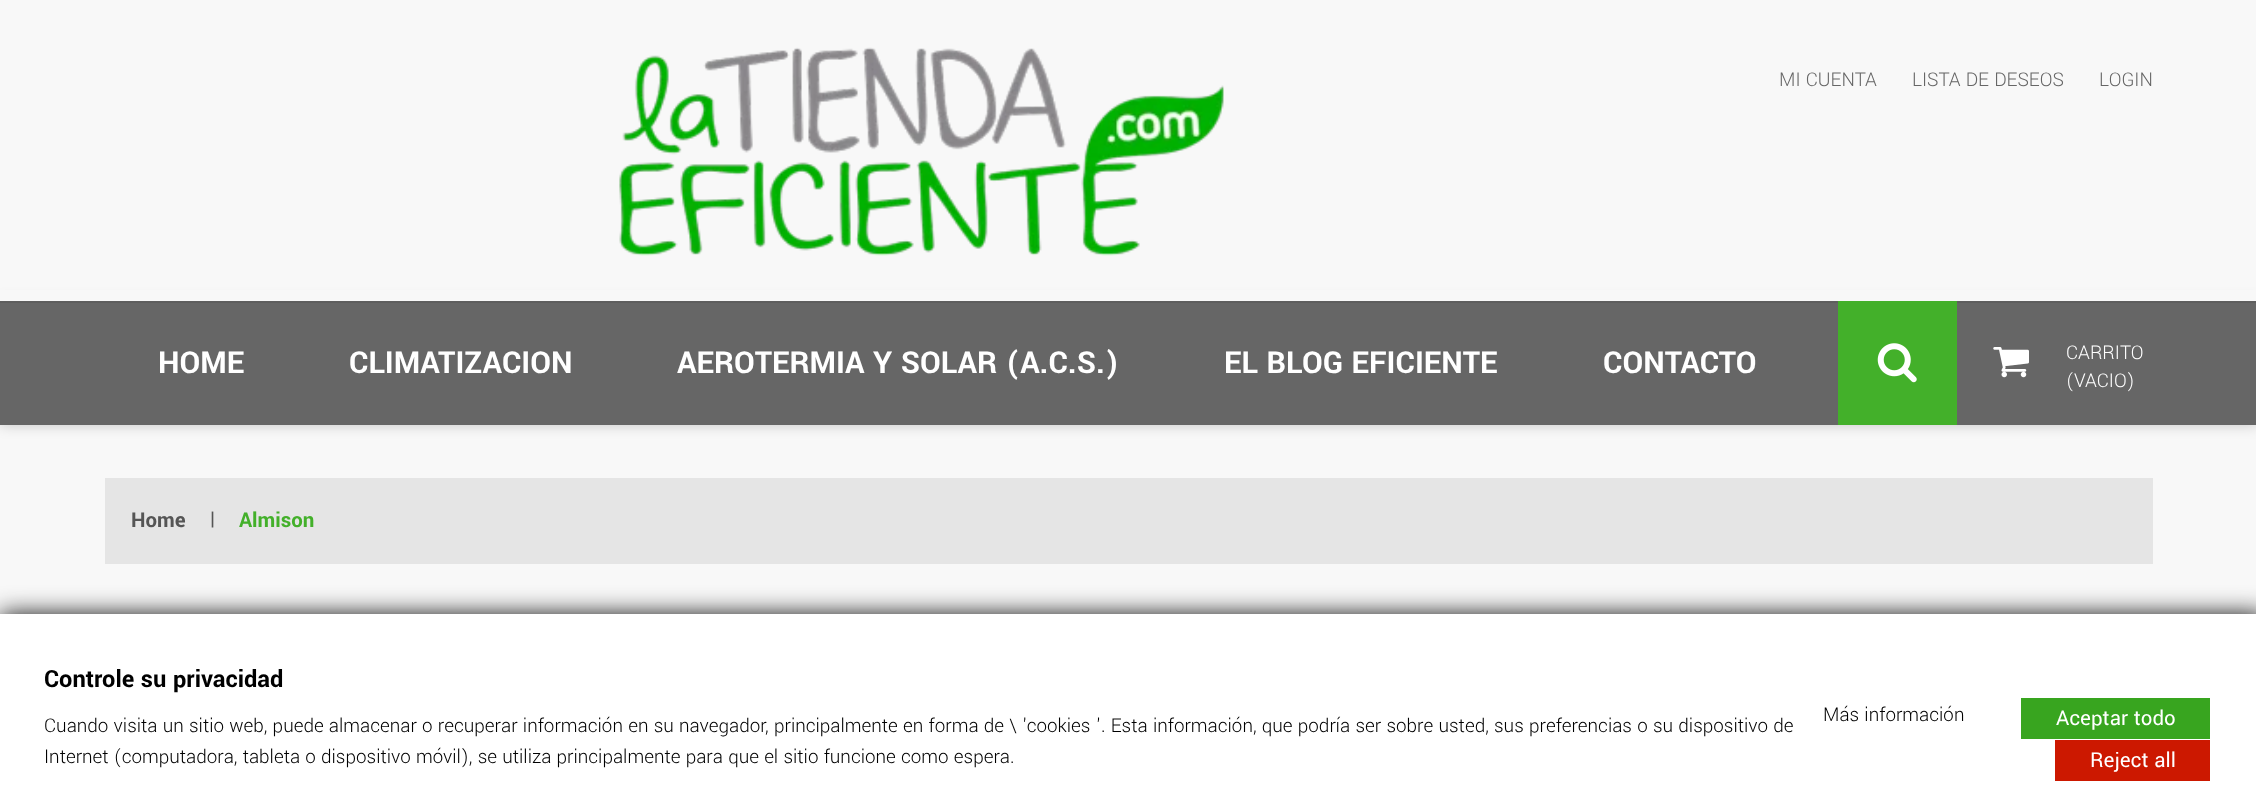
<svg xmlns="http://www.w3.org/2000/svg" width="2256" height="800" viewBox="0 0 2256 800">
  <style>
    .t1 { font: 300 21px Yantramanav; fill: #666; }
    .t2 { font: bold 33.75px Yantramanav; fill: #fff; }
    .t3 { font: 300 21px Yantramanav; fill: #fff; }
    .t4 { font: bold 22.75px Yantramanav; fill: #555; }
    .t5 { font: bold 21px Yantramanav; fill: #555; }
    .t6 { font: bold 22.75px Yantramanav; fill: #43b02a; }
    .t7 { font: bold 26.25px Yantramanav; fill: #000; }
    .t8 { font: 300 21px Yantramanav; fill: #000; }
    .t9 { font: 22.75px Yantramanav; fill: #fff; }
  </style>
  <rect width="100%" height="100%" fill="#f8f8f8"/>
  <rect x="0" y="301" width="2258" height="124" fill="#00000033" filter="blur(7px)"/>
  <rect x="0" y="290" width="2256" height="11" fill="#f8f8f8"/>
  <image x="619" y="47" width="605" height="209" href="images/1.png"/>
  <text x="1779" y="86" class="t1">MI CUENTA</text>
  <text x="1912" y="86" class="t1">LISTA DE DESEOS</text>
  <text x="2099" y="86" class="t1">LOGIN</text>
  <rect x="0" y="303" width="2256" height="122" fill="#666"/>
  <rect x="0" y="301" width="2256" height="2" fill="#5e5e5e"/>
  <text x="158" y="373" class="t2">HOME</text>
  <text x="349" y="373" class="t2">CLIMATIZACION</text>
  <text x="677" y="373" class="t2">AEROTERMIA Y SOLAR (A.C.S.)</text>
  <text x="1224" y="373" class="t2">EL BLOG EFICIENTE</text>
  <text x="1603" y="373" class="t2">CONTACTO</text>
  <rect x="1838" y="301" width="119" height="124" fill="#43b02a"/>
  <image x="1877" y="343" width="40" height="40" href="images/2.png"/>
  <image x="1993" y="347" width="36" height="31" href="images/3.png"/>
  <text x="2066" y="359" class="t3">CARRITO</text>
  <text x="2066" y="387" class="t3">(VACIO)</text>
  <rect x="105" y="478" width="2048" height="86" fill="#e5e5e5"/>
  <text x="131" y="527" class="t4">Home</text>
  <text x="209" y="525" class="t5">|</text>
  <text x="239" y="527" class="t6">Almison</text>
  <rect x="0" y="614" width="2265" height="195" fill="#121212" filter="blur(12px)"/>
  <rect x="0" y="614" width="2256" height="186" fill="#fff"/>
  <text x="44" y="687" class="t7">Controle su privacidad</text>
  <text x="44" y="732" class="t8">Cuando visita un sitio web, puede almacenar o recuperar información en su navegador, principalmente en forma de \ 'cookies '. Esta información, que podría ser sobre usted, sus preferencias o su dispositivo de</text>
  <text x="44" y="763" class="t8">Internet (computadora, tableta o dispositivo móvil), se utiliza principalmente para que el sitio funcione como espera.</text>
  <text x="1823" y="721" class="t8">Más información</text>
  <rect x="2021" y="698" width="189" height="41" fill="#38a51f"/>
  <text x="2056" y="725" class="t9">Aceptar todo</text>
  <rect x="2055" y="740" width="155" height="41" fill="#cc1800"/>
  <text x="2090" y="767" class="t9">Reject all</text>
</svg>
